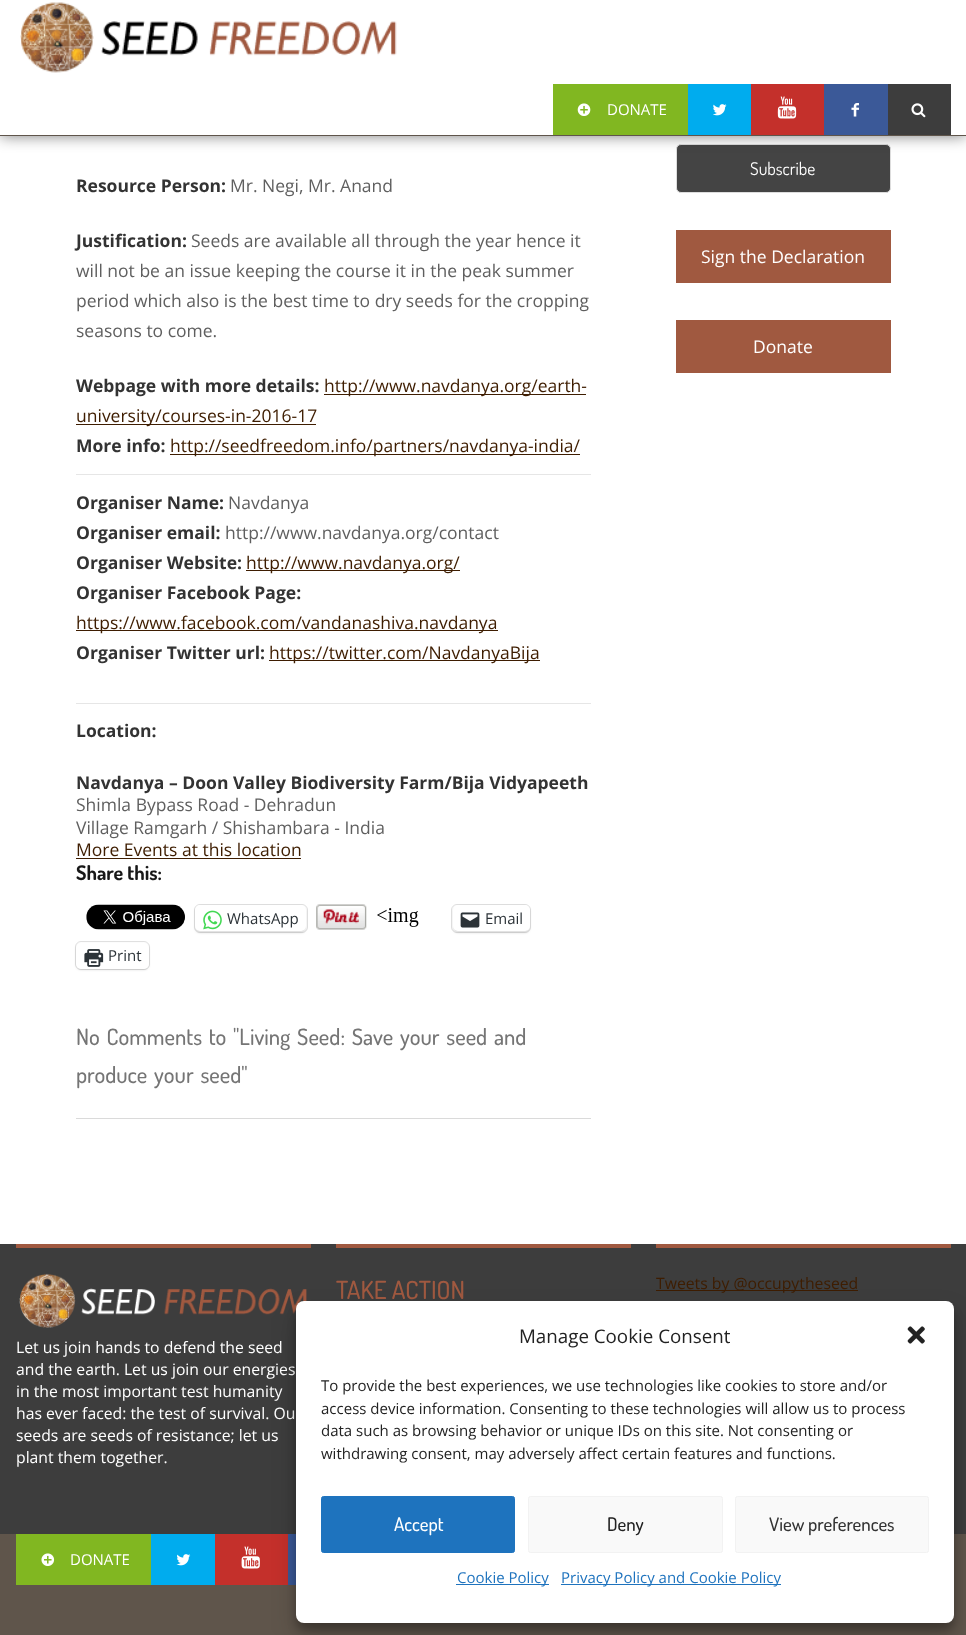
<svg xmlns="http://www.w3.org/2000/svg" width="966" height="1635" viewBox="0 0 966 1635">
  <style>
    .t1 { font: 15px Open Sans; fill: #fff; }
    .t2 { font: bold 17.5px Open Sans; fill: #333; }
    .t3 { font: 17.5px Open Sans; fill: #5f5f5f; }
    .t4 { font: 17.5px Open Sans; fill: #3e1d01; }
    .t5 { font: bold 20px Dosis; fill: #181818; }
    .t6 { font: 15px Open Sans; fill: #2c3338; }
    .t7 { font: 500 22.5px Dosis; fill: #757575; }
    .t8 { font: 17.5px Dosis; fill: #fff; }
    .t9 { font: 17.5px Open Sans; fill: #fff; }
    .t10 { font: 500 25px Dosis; fill: #a05940; }
    .t11 { font: 15.75px Open Sans; fill: #3e1d01; }
    .t12 { font: 15.75px Open Sans; fill: #fff; }
    .t13 { font: 18.75px Open Sans; fill: #222; }
    .t14 { font: 15px Open Sans; fill: #222; }
    .t15 { font: 500 18.75px Dosis; fill: #fff; }
    .t16 { font: 500 18.75px Dosis; fill: #222; }
    .t17 { font: 500 18.75px Dosis; fill: #333; }
    .t18 { font: 15px Open Sans; fill: #1e73be; }
  </style>
  <rect width="100%" height="100%" fill="#fff"/>
  <rect x="676.5" y="144.5" width="214" height="48" rx="4.5" fill="#444" stroke="#ddd"/>
  <rect x="0" y="0" width="966" height="136" fill="#00000080" filter="blur(7.5px)"/>
  <rect x="0" y="0" width="966" height="135" fill="#fff"/>
  <rect x="0" y="135" width="966" height="1" fill="#5f554b"/>
  <image x="20" y="2" width="377" height="71" href="images/1.png"/>
  <rect x="553" y="84" width="135" height="51" fill="#81b721"/>
  <image x="577" y="103" width="14" height="13" href="images/2.png"/>
  <text x="607" y="115" class="t1">DONATE</text>
  <rect x="688" y="84" width="63" height="51" fill="#00acee"/>
  <image x="713" y="104" width="14" height="12" href="images/3.png"/>
  <rect x="751" y="84" width="73" height="51" fill="#c4302b"/>
  <image x="777" y="96" width="20" height="23" href="images/4.png"/>
  <rect x="824" y="84" width="64" height="51" fill="#3b5998"/>
  <image x="851" y="103" width="8" height="14" href="images/5.png"/>
  <rect x="888" y="84" width="63" height="51" fill="#3d3d3d"/>
  <image x="911" y="103" width="15" height="15" href="images/6.png"/>
  <rect x="76" y="703" width="515" height="1" fill="#e6e6e6"/>
  <rect x="76" y="474" width="515" height="1" fill="#e6e6e6"/>
  <text x="76" y="192" class="t2">Resource Person:</text>
  <text x="230" y="192" class="t3">Mr. Negi, Mr. Anand</text>
  <text x="76" y="247" class="t2">Justification:</text>
  <text x="191" y="247" class="t3">Seeds are available all through the year hence it</text>
  <text x="76" y="277" class="t3">will not be an issue keeping the course it in the peak summer</text>
  <text x="76" y="307" class="t3">period which also is the best time to dry seeds for the cropping</text>
  <text x="76" y="337" class="t3">seasons to come.</text>
  <text x="76" y="392" class="t2">Webpage with more details:</text>
  <rect x="324" y="394" width="262" height="1" fill="#3e1d01"/>
  <text x="324" y="392" class="t4">http://www.navdanya.org/earth-</text>
  <rect x="76" y="424" width="240" height="1" fill="#3e1d01"/>
  <text x="76" y="422" class="t4">university/courses-in-2016-17</text>
  <text x="76" y="452" class="t2">More info:</text>
  <rect x="170" y="454" width="410" height="1" fill="#3e1d01"/>
  <text x="170" y="452" class="t4">http://seedfreedom.info/partners/navdanya-india/</text>
  <text x="76" y="509" class="t2">Organiser Name:</text>
  <text x="228" y="509" class="t3">Navdanya</text>
  <text x="76" y="539" class="t2">Organiser email:</text>
  <text x="225" y="539" class="t3">http://www.navdanya.org/contact</text>
  <text x="76" y="569" class="t2">Organiser Website:</text>
  <rect x="246" y="570" width="214" height="1" fill="#3e1d01"/>
  <text x="246" y="569" class="t4">http://www.navdanya.org/</text>
  <text x="76" y="599" class="t2">Organiser Facebook Page:</text>
  <rect x="76" y="630" width="422" height="1" fill="#3e1d01"/>
  <text x="76" y="629" class="t4">https://www.facebook.com/vandanashiva.navdanya</text>
  <text x="76" y="659" class="t2">Organiser Twitter url:</text>
  <rect x="269" y="660" width="271" height="1" fill="#3e1d01"/>
  <text x="269" y="659" class="t4">https://twitter.com/NavdanyaBija</text>
  <text x="76" y="737" class="t2">Location:</text>
  <text x="76" y="789" class="t2">Navdanya – Doon Valley Biodiversity Farm/Bija Vidyapeeth</text>
  <text x="76" y="811" class="t3">Shimla Bypass Road - Dehradun</text>
  <text x="76" y="834" class="t3">Village Ramgarh / Shishambara - India</text>
  <text x="76" y="856" class="t4">More Events at this location</text>
  <rect x="76" y="858" width="225" height="1" fill="#3e1d01"/>
  <text x="76" y="880" class="t5">Share this:</text>
  <image x="86" y="904" width="99" height="26" href="images/7.png"/>
  <rect x="194.5" y="904.5" width="113" height="28" rx="5.5" fill="none" stroke="#e0e0e0"/>
  <rect x="195" y="906" width="111" height="27" rx="5" fill="#0000001f" filter="blur(1px)"/>
  <rect x="195" y="905" width="111" height="26" rx="5" fill="#fff"/>
  <image x="203" y="910" width="19" height="20" href="images/8.png"/>
  <text x="227" y="924" class="t6">WhatsApp</text>
  <image x="316" y="904" width="51" height="26" href="images/9.png"/>
  <image x="377" y="908" width="42" height="19" href="images/10.png"/>
  <rect x="451.5" y="904.5" width="79" height="28" rx="5.5" fill="none" stroke="#e0e0e0"/>
  <rect x="453" y="906" width="77" height="27" rx="5" fill="#0000001f" filter="blur(1px)"/>
  <rect x="453" y="905" width="77" height="26" rx="5" fill="#fff"/>
  <image x="460" y="912" width="20" height="16" href="images/11.png"/>
  <text x="485" y="924" class="t6">Email</text>
  <rect x="75.5" y="941.5" width="74" height="28" rx="5.5" fill="none" stroke="#e0e0e0"/>
  <rect x="76" y="944" width="73" height="26" rx="5" fill="#0000001f" filter="blur(1px)"/>
  <rect x="76" y="943" width="73" height="26" rx="5" fill="#fff"/>
  <image x="84" y="949" width="20" height="18" href="images/12.png"/>
  <text x="108" y="961" class="t6">Print</text>
  <rect x="76" y="1118" width="515" height="1" fill="#dadada"/>
  <text x="76" y="1045" word-spacing="2.25" class="t7">No Comments to "Living Seed: Save your seed and</text>
  <text x="76" y="1083" word-spacing="2.25" class="t7">produce your seed"</text>
  <text x="750" y="175" class="t8">Subscribe</text>
  <rect x="676" y="230" width="215" height="53" fill="#a05940"/>
  <text x="701" y="263" class="t9">Sign the Declaration</text>
  <rect x="676" y="320" width="215" height="53" fill="#a05940"/>
  <text x="753" y="353" class="t9">Donate</text>
  <rect x="0" y="1244" width="966" height="290" fill="#3d3d3d"/>
  <rect x="336" y="1244" width="295" height="4" fill="#a05940"/>
  <text x="336" y="1299" class="t10">TAKE ACTION</text>
  <rect x="656" y="1244" width="295" height="4" fill="#a05940"/>
  <rect x="656" y="1290" width="202" height="1" fill="#3e1d01"/>
  <text x="656" y="1289" class="t11">Tweets by @occupytheseed</text>
  <rect x="16" y="1244" width="295" height="4" fill="#a05940"/>
  <image x="19" y="1273" width="288" height="55" href="images/13.png"/>
  <text x="16" y="1353" class="t12">Let us join hands to defend the seed</text>
  <text x="16" y="1375" class="t12">and the earth. Let us join our energies</text>
  <text x="16" y="1397" class="t12">in the most important test humanity</text>
  <text x="16" y="1419" class="t12">has ever faced: the test of survival. Ou</text>
  <text x="16" y="1441" class="t12">seeds are seeds of resistance; let us</text>
  <text x="16" y="1463" class="t12">plant them together.</text>
  <rect x="0" y="1534" width="966" height="101" fill="#5f554b"/>
  <rect x="16" y="1534" width="135" height="51" fill="#81b721"/>
  <image x="41" y="1553" width="14" height="14" href="images/14.png"/>
  <text x="70" y="1565" class="t1">DONATE</text>
  <rect x="151" y="1534" width="64" height="51" fill="#00acee"/>
  <image x="176" y="1554" width="15" height="12" href="images/15.png"/>
  <rect x="215" y="1534" width="73" height="51" fill="#c4302b"/>
  <image x="241" y="1546" width="19" height="23" href="images/16.png"/>
  <rect x="288" y="1534" width="8" height="51" fill="#3b5998"/>
  <rect x="296" y="1309" width="658" height="321" rx="8" fill="#0000003b" filter="blur(4px)"/>
  <rect x="296" y="1314" width="658" height="321" rx="8" fill="#00000030" filter="blur(12.5px)"/>
  <rect x="296" y="1301" width="658" height="322" rx="8" fill="#fff"/>
  <text x="519" y="1343" class="t13">Manage Cookie Consent</text>
  <image x="907" y="1326" width="18" height="18" href="images/17.png"/>
  <text x="321" y="1391" class="t14">To provide the best experiences, we use technologies like cookies to store and/or</text>
  <text x="321" y="1414" class="t14">access device information. Consenting to these technologies will allow us to process</text>
  <text x="321" y="1436" class="t14">data such as browsing behavior or unique IDs on this site. Not consenting or</text>
  <text x="321" y="1459" class="t14">withdrawing consent, may adversely affect certain features and functions.</text>
  <rect x="321.5" y="1496.5" width="193" height="56" rx="2" fill="#1e73be" stroke="#1e73be"/>
  <text x="394" y="1531" class="t15">Accept</text>
  <rect x="528.5" y="1496.5" width="194" height="56" rx="2" fill="#f9f9f9" stroke="#f2f2f2"/>
  <text x="607" y="1531" class="t16">Deny</text>
  <rect x="735.5" y="1496.5" width="193" height="56" rx="2" fill="#f9f9f9" stroke="#f2f2f2"/>
  <text x="769" y="1531" class="t17">View preferences</text>
  <rect x="456" y="1584" width="93" height="1" fill="#1e73be"/>
  <text x="457" y="1583" class="t18">Cookie Policy</text>
  <rect x="561" y="1584" width="220" height="1" fill="#1e73be"/>
  <text x="561" y="1583" class="t18">Privacy Policy and Cookie Policy</text>
</svg>
